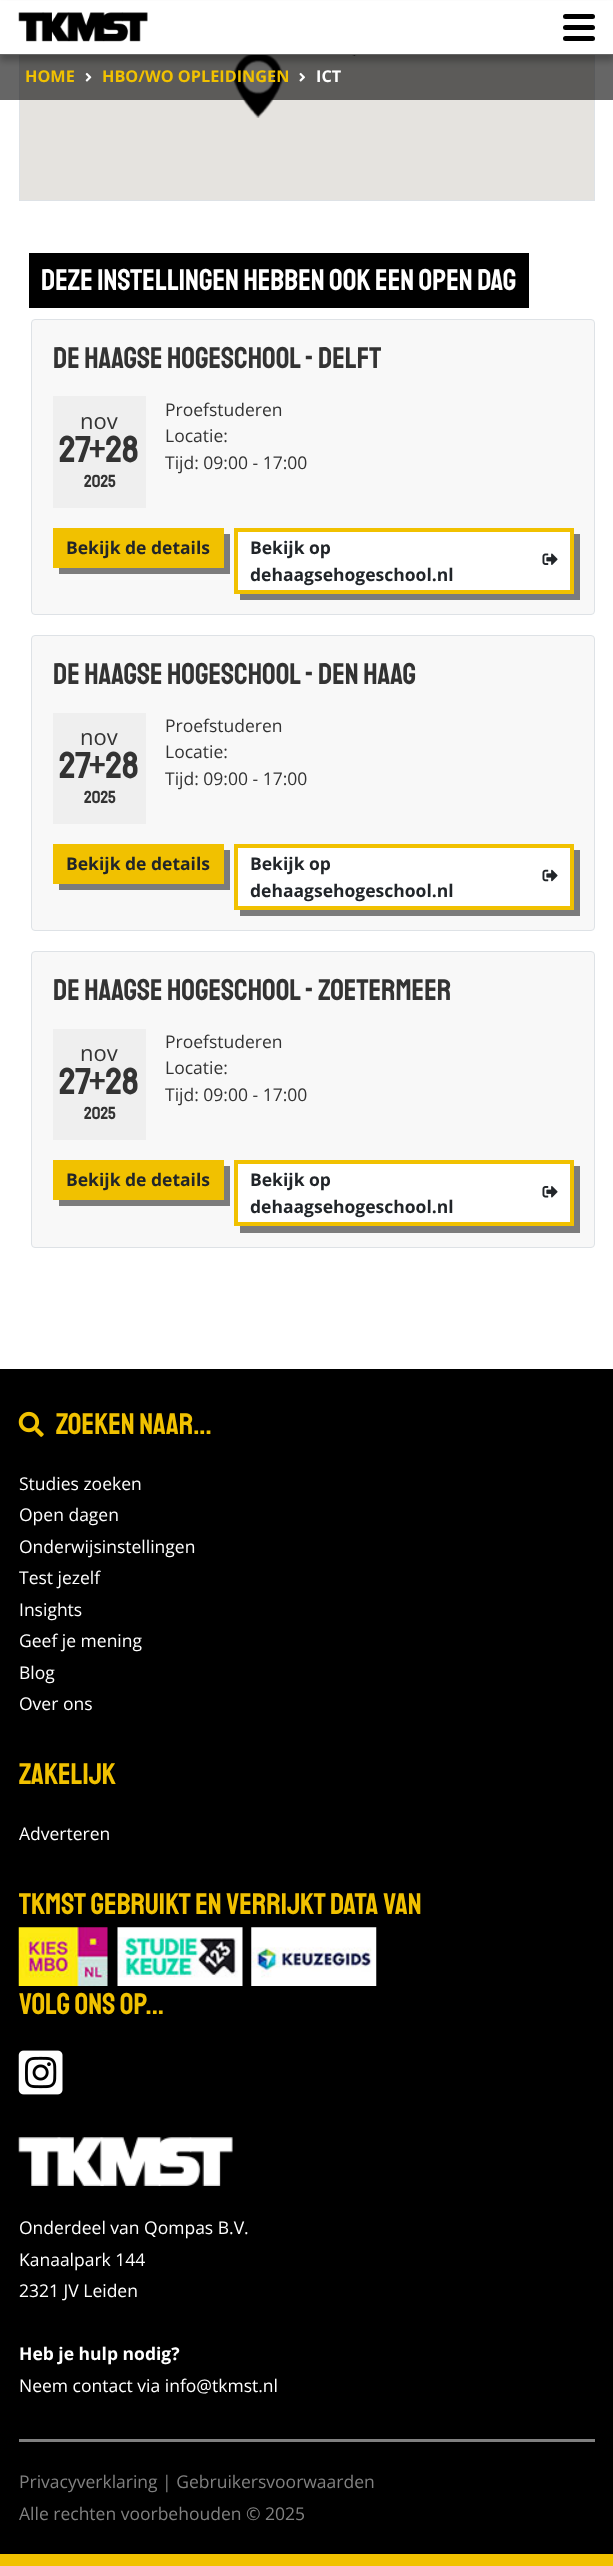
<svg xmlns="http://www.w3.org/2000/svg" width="613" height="2566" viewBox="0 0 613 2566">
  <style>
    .t1 { font: bold 16.25px Open Sans; fill: #f1c100; }
    .t2 { font: bold 16.25px Open Sans; fill: #fff; }
    .t3 { font: 30px Staatliches; fill: #fff; }
    .t4 { font: 30px Staatliches; fill: #333; }
    .t5 { font: 22px Open Sans; fill: #333; }
    .t6 { font: 37.5px Staatliches; fill: #333; }
    .t7 { font: 17.5px Staatliches; fill: #333; }
    .t8 { font: 17.5px Open Sans; fill: #333; }
    .t9 { font: bold 17.5px Open Sans; fill: #212529; }
    .t10 { font: 30px Staatliches; fill: #f1c100; }
    .t11 { font: 17.5px Open Sans; fill: #fff; }
    .t12 { font: bold 17.5px Open Sans; fill: #fff; }
    .t13 { font: 17.5px Open Sans; fill: #808080; }
  </style>
  <rect width="100%" height="100%" fill="#fff"/>
  <rect x="594" y="55" width="1" height="146" fill="#dee2e6"/>
  <rect x="19" y="200" width="576" height="1" fill="#dee2e6"/>
  <rect x="19" y="55" width="1" height="146" fill="#dee2e6"/>
  <rect x="20" y="55" width="574" height="145" fill="#e5e3df"/>
  <image x="234" y="55" width="49" height="63" href="images/4.png"/>
  <image x="352" y="55" width="5" height="1" href="images/5.png"/>
  <rect x="0" y="6" width="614" height="55" fill="#00000040" filter="blur(3px)"/>
  <rect x="0" y="1" width="613" height="54" fill="#fff"/>
  <image x="18" y="12" width="130" height="30" href="images/1.png"/>
  <rect x="563" y="14" width="32" height="5" rx="2.5" fill="#000"/>
  <rect x="563" y="25" width="32" height="5" rx="2.5" fill="#000"/>
  <rect x="563" y="36" width="32" height="5" rx="2.5" fill="#000"/>
  <rect x="0" y="54" width="613" height="46" fill="#00000099"/>
  <text x="25" y="82" class="t1">HOME</text>
  <image x="85" y="72" width="7" height="10" href="images/2.png"/>
  <text x="102" y="82" class="t1">HBO/WO OPLEIDINGEN</text>
  <image x="299" y="72" width="6" height="10" href="images/3.png"/>
  <text x="316" y="82" class="t2">ICT</text>
  <rect x="29" y="253" width="500" height="55" fill="#000"/>
  <text x="41" y="290" class="t3">Deze instellingen hebben ook een open dag</text>
  <rect x="31.5" y="319.5" width="563" height="295" rx="3.5" fill="#f8f8f8" stroke="#dee2e6"/>
  <text x="53" y="368" class="t4">De Haagse Hogeschool - Delft</text>
  <rect x="53" y="396" width="93" height="112" fill="#efefef"/>
  <text x="80" y="429" class="t5">nov</text>
  <text x="59" y="462" class="t6">27+28</text>
  <text x="84" y="487" class="t7">2025</text>
  <text x="165" y="416" class="t8">Proefstuderen</text>
  <text x="165" y="442" class="t8">Locatie:</text>
  <text x="165" y="469" class="t8">Tijd: 09:00 - 17:00</text>
  <path d="M59 568V574H230V534H224V568Z" fill="#7c7c7c"/>
  <rect x="53" y="528" width="171" height="40" fill="#f1c100"/>
  <text x="66" y="554" class="t9">Bekijk de details</text>
  <path d="M240 594V600H580V534H574V594Z" fill="#7c7c7c"/>
  <rect x="236" y="530" width="336" height="62" fill="#fff" stroke="#f1c100" stroke-width="4"/>
  <text x="250" y="554" class="t9">Bekijk op</text>
  <text x="250" y="581" class="t9">dehaagsehogeschool.nl</text>
  <image x="542" y="553" width="16" height="12" href="images/6.png"/>
  <rect x="31.5" y="635.5" width="563" height="295" rx="3.5" fill="#f8f8f8" stroke="#dee2e6"/>
  <text x="53" y="684" class="t4">De Haagse Hogeschool - Den Haag</text>
  <rect x="53" y="713" width="93" height="111" fill="#efefef"/>
  <text x="80" y="745" class="t5">nov</text>
  <text x="59" y="778" class="t6">27+28</text>
  <text x="84" y="803" class="t7">2025</text>
  <text x="165" y="732" class="t8">Proefstuderen</text>
  <text x="165" y="758" class="t8">Locatie:</text>
  <text x="165" y="785" class="t8">Tijd: 09:00 - 17:00</text>
  <path d="M59 884V890H230V850H224V884Z" fill="#7c7c7c"/>
  <rect x="53" y="844" width="171" height="40" fill="#f1c100"/>
  <text x="66" y="870" class="t9">Bekijk de details</text>
  <path d="M240 910V916H580V850H574V910Z" fill="#7c7c7c"/>
  <rect x="236" y="846" width="336" height="62" fill="#fff" stroke="#f1c100" stroke-width="4"/>
  <text x="250" y="870" class="t9">Bekijk op</text>
  <text x="250" y="897" class="t9">dehaagsehogeschool.nl</text>
  <image x="542" y="869" width="16" height="13" href="images/7.png"/>
  <rect x="31.5" y="951.5" width="563" height="296" rx="3.5" fill="#f8f8f8" stroke="#dee2e6"/>
  <text x="53" y="1000" class="t4">De Haagse Hogeschool - Zoetermeer</text>
  <rect x="53" y="1029" width="93" height="111" fill="#efefef"/>
  <text x="80" y="1061" class="t5">nov</text>
  <text x="59" y="1094" class="t6">27+28</text>
  <text x="84" y="1119" class="t7">2025</text>
  <text x="165" y="1048" class="t8">Proefstuderen</text>
  <text x="165" y="1074" class="t8">Locatie:</text>
  <text x="165" y="1101" class="t8">Tijd: 09:00 - 17:00</text>
  <path d="M59 1200V1206H230V1166H224V1200Z" fill="#7c7c7c"/>
  <rect x="53" y="1160" width="171" height="40" fill="#f1c100"/>
  <text x="66" y="1186" class="t9">Bekijk de details</text>
  <path d="M240 1226V1233H580V1166H574V1226Z" fill="#7c7c7c"/>
  <rect x="236" y="1162" width="336" height="62" fill="#fff" stroke="#f1c100" stroke-width="4"/>
  <text x="250" y="1186" class="t9">Bekijk op</text>
  <text x="250" y="1213" class="t9">dehaagsehogeschool.nl</text>
  <image x="542" y="1186" width="16" height="12" href="images/8.png"/>
  <rect x="0" y="1369" width="613" height="1185" fill="#000"/>
  <rect x="0" y="2554" width="613" height="12" fill="#f1c100"/>
  <image x="18" y="1411" width="26" height="26" href="images/9.png"/>
  <text x="56" y="1434" class="t10">Zoeken naar...</text>
  <text x="19" y="1490" class="t11">Studies zoeken</text>
  <text x="19" y="1521" class="t11">Open dagen</text>
  <text x="19" y="1553" class="t11">Onderwijsinstellingen</text>
  <text x="19" y="1584" class="t11">Test jezelf</text>
  <text x="19" y="1616" class="t11">Insights</text>
  <text x="19" y="1647" class="t11">Geef je mening</text>
  <text x="19" y="1679" class="t11">Blog</text>
  <text x="19" y="1710" class="t11">Over ons</text>
  <text x="19" y="1784" class="t10">Zakelijk</text>
  <text x="19" y="1840" class="t11">Adverteren</text>
  <text x="19" y="1914" class="t10">TKMST gebruikt en verrijkt data van</text>
  <image x="18" y="1927" width="90" height="59" href="images/10.png"/>
  <image x="117" y="1927" width="126" height="59" href="images/11.png"/>
  <image x="251" y="1927" width="126" height="59" href="images/12.png"/>
  <text x="19" y="2014" class="t10">Volg ons op...</text>
  <image x="18" y="2050" width="45" height="45" href="images/13.png"/>
  <image x="18" y="2137" width="215" height="49" href="images/14.png"/>
  <text x="19" y="2234" class="t11">Onderdeel van Qompas B.V.</text>
  <text x="19" y="2266" class="t11">Kanaalpark 144</text>
  <text x="19" y="2297" class="t11">2321 JV Leiden</text>
  <text x="19" y="2360" class="t12">Heb je hulp nodig?</text>
  <text x="19" y="2392" class="t11">Neem contact via info@tkmst.nl</text>
  <rect x="19" y="2439" width="576" height="3" fill="#808080"/>
  <text x="19" y="2488" class="t13">Privacyverklaring | Gebruikersvoorwaarden</text>
  <text x="19" y="2520" class="t13">Alle rechten voorbehouden © 2025</text>
</svg>
